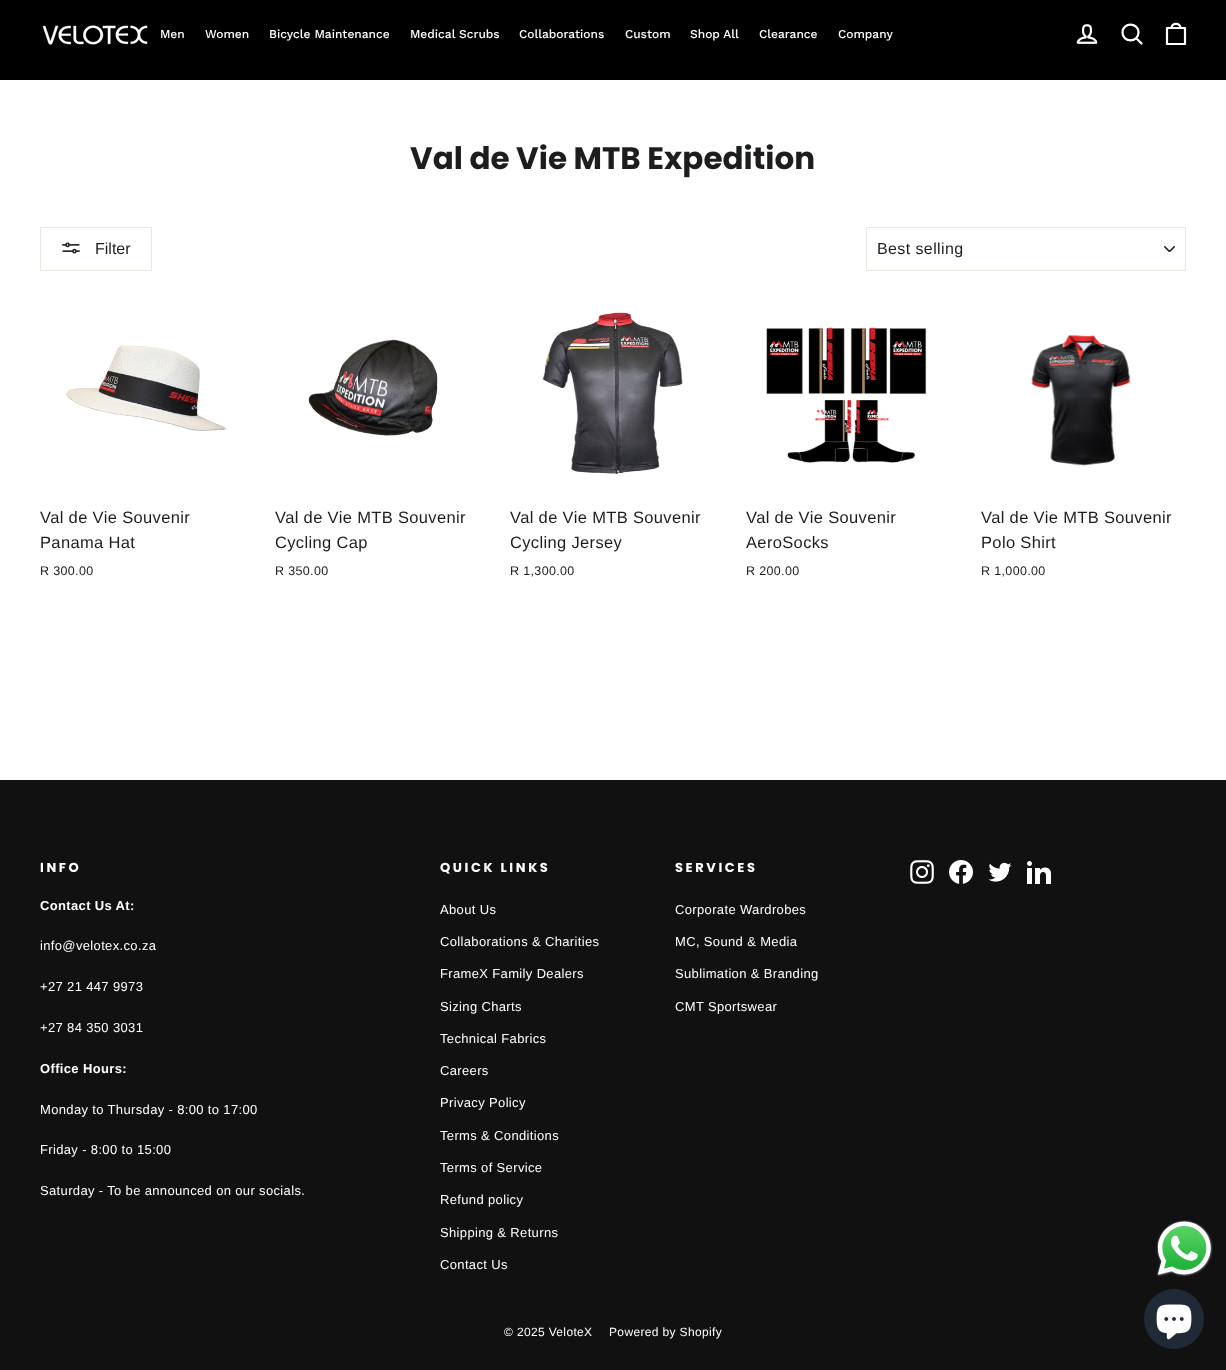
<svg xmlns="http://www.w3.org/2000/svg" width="1226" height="1370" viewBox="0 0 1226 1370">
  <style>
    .t1 { font: 500 12px Work Sans; fill: #fff; }
    .t2 { font: bold 31px Poppins; fill: #1c1d1d; }
    .t3 { font: 16px Liberation Sans; fill: #1c1d1d; }
    .t4 { font: 16px Liberation Sans; letter-spacing: 0.4px; fill: #1c1d1d; }
    .t5 { font: 16.5px Liberation Sans; letter-spacing: 0.35px; fill: #1c1d1d; }
    .t6 { font: 12.5px Liberation Sans; letter-spacing: 0.35px; fill: #1c1d1d; }
    .t7 { font: bold 13px Poppins; letter-spacing: 2.6px; fill: #fff; }
    .t8 { font: bold 13px Liberation Sans; letter-spacing: 0.35px; fill: #fff; }
    .t9 { font: 13px Liberation Sans; letter-spacing: 0.35px; fill: #fff; }
    .t10 { font: 12px Liberation Sans; letter-spacing: 0.35px; fill: #fff; }
  </style>
  <rect width="100%" height="100%" fill="#fff"/>
  <rect x="0" y="0" width="1226" height="80" fill="#000"/>
  <image x="42" y="25" width="106" height="20" href="images/1.png"/>
  <text x="160" y="38" class="t1">Men</text>
  <text x="205" y="38" class="t1">Women</text>
  <text x="269" y="38" class="t1">Bicycle Maintenance</text>
  <text x="410" y="38" class="t1">Medical Scrubs</text>
  <text x="519" y="38" class="t1">Collaborations</text>
  <text x="625" y="38" class="t1">Custom</text>
  <text x="690" y="38" class="t1">Shop All</text>
  <text x="759" y="38" class="t1">Clearance</text>
  <text x="838" y="38" class="t1">Company</text>
  <image x="1076" y="24" width="22" height="20" href="images/2.png"/>
  <path d="M1138.5 32.5C1138.5 43 1122.5 43 1122.5 32.5C1122.5 22 1138.5 22 1138.5 32.5ZM1141.5 43.5L1136.5 38.5" fill="none" stroke="#fff" stroke-width="2.2" stroke-linecap="round" stroke-linejoin="round"/>
  <path d="M1167 28H1185V44H1167ZM1171.5 28C1171.5 22.5 1180.5 22.5 1180.5 28" fill="none" stroke="#fff" stroke-width="2.2" stroke-linecap="round" stroke-linejoin="round"/>
  <text x="410" y="169" class="t2">Val de Vie MTB Expedition</text>
  <rect x="40.5" y="227.5" width="111" height="43" fill="none" stroke="#e8e8e1"/>
  <image x="62" y="242" width="18" height="12" href="images/3.png"/>
  <text x="95" y="254" class="t3">Filter</text>
  <image x="1164" y="246" width="11" height="6" href="images/4.png"/>
  <rect x="866.5" y="227.5" width="319" height="43" fill="none" stroke="#e8e8e1"/>
  <text x="877" y="254" class="t4">Best selling</text>
  <image x="66" y="345" width="161" height="86" href="images/5.png"/>
  <text x="40" y="523" class="t5">Val de Vie Souvenir</text>
  <text x="40" y="548" class="t5">Panama Hat</text>
  <text x="40" y="575" class="t6">R 300.00</text>
  <image x="308" y="339" width="130" height="97" href="images/6.png"/>
  <text x="275" y="523" class="t5">Val de Vie MTB Souvenir</text>
  <text x="275" y="548" class="t5">Cycling Cap</text>
  <text x="275" y="575" class="t6">R 350.00</text>
  <image x="542" y="312" width="141" height="162" href="images/7.png"/>
  <text x="510" y="523" class="t5">Val de Vie MTB Souvenir</text>
  <text x="510" y="548" class="t5">Cycling Jersey</text>
  <text x="510" y="575" class="t6">R 1,300.00</text>
  <image x="766" y="327" width="161" height="136" href="images/8.png"/>
  <text x="746" y="523" class="t5">Val de Vie Souvenir</text>
  <text x="746" y="548" class="t5">AeroSocks</text>
  <text x="746" y="575" class="t6">R 200.00</text>
  <image x="1031" y="335" width="100" height="131" href="images/9.png"/>
  <text x="981" y="523" class="t5">Val de Vie MTB Souvenir</text>
  <text x="981" y="548" class="t5">Polo Shirt</text>
  <text x="981" y="575" class="t6">R 1,000.00</text>
  <rect x="0" y="780" width="1226" height="590" fill="#111"/>
  <text x="40" y="872" class="t7">INFO</text>
  <text x="40" y="910" class="t8">Contact Us At:</text>
  <text x="40" y="950" class="t9">info@velotex.co.za</text>
  <text x="40" y="991" class="t9">+27 21 447 9973</text>
  <text x="40" y="1032" class="t9">+27 84 350 3031</text>
  <text x="40" y="1073" class="t8">Office Hours:</text>
  <text x="40" y="1114" class="t9">Monday to Thursday - 8:00 to 17:00</text>
  <text x="40" y="1154" class="t9">Friday - 8:00 to 15:00</text>
  <text x="40" y="1195" class="t9">Saturday - To be announced on our socials.</text>
  <text x="440" y="872" class="t7">QUICK LINKS</text>
  <text x="440" y="914" class="t9">About Us</text>
  <text x="440" y="946" class="t9">Collaborations &amp; Charities</text>
  <text x="440" y="978" class="t9">FrameX Family Dealers</text>
  <text x="440" y="1011" class="t9">Sizing Charts</text>
  <text x="440" y="1043" class="t9">Technical Fabrics</text>
  <text x="440" y="1075" class="t9">Careers</text>
  <text x="440" y="1107" class="t9">Privacy Policy</text>
  <text x="440" y="1140" class="t9">Terms &amp; Conditions</text>
  <text x="440" y="1172" class="t9">Terms of Service</text>
  <text x="440" y="1204" class="t9">Refund policy</text>
  <text x="440" y="1237" class="t9">Shipping &amp; Returns</text>
  <text x="440" y="1269" class="t9">Contact Us</text>
  <text x="675" y="872" class="t7">SERVICES</text>
  <text x="675" y="914" class="t9">Corporate Wardrobes</text>
  <text x="675" y="946" class="t9">MC, Sound &amp; Media</text>
  <text x="675" y="978" class="t9">Sublimation &amp; Branding</text>
  <text x="675" y="1011" class="t9">CMT Sportswear</text>
  <image x="910" y="860" width="24" height="24" href="images/10.png"/>
  <image x="949" y="860" width="24" height="24" href="images/11.png"/>
  <image x="988" y="862" width="24" height="20" href="images/12.png"/>
  <image x="1027" y="861" width="24" height="23" href="images/13.png"/>
  <text x="504" y="1336" class="t10">© 2025 VeloteX</text>
  <text x="609" y="1336" class="t10">Powered by Shopify</text>
  <image x="1156" y="1220" width="57" height="57" href="images/14.png"/>
  <circle cx="1174" cy="1319" r="30" fill="#202a36"/>
  <image x="1156" y="1304" width="36" height="36" href="images/15.png"/>
</svg>
